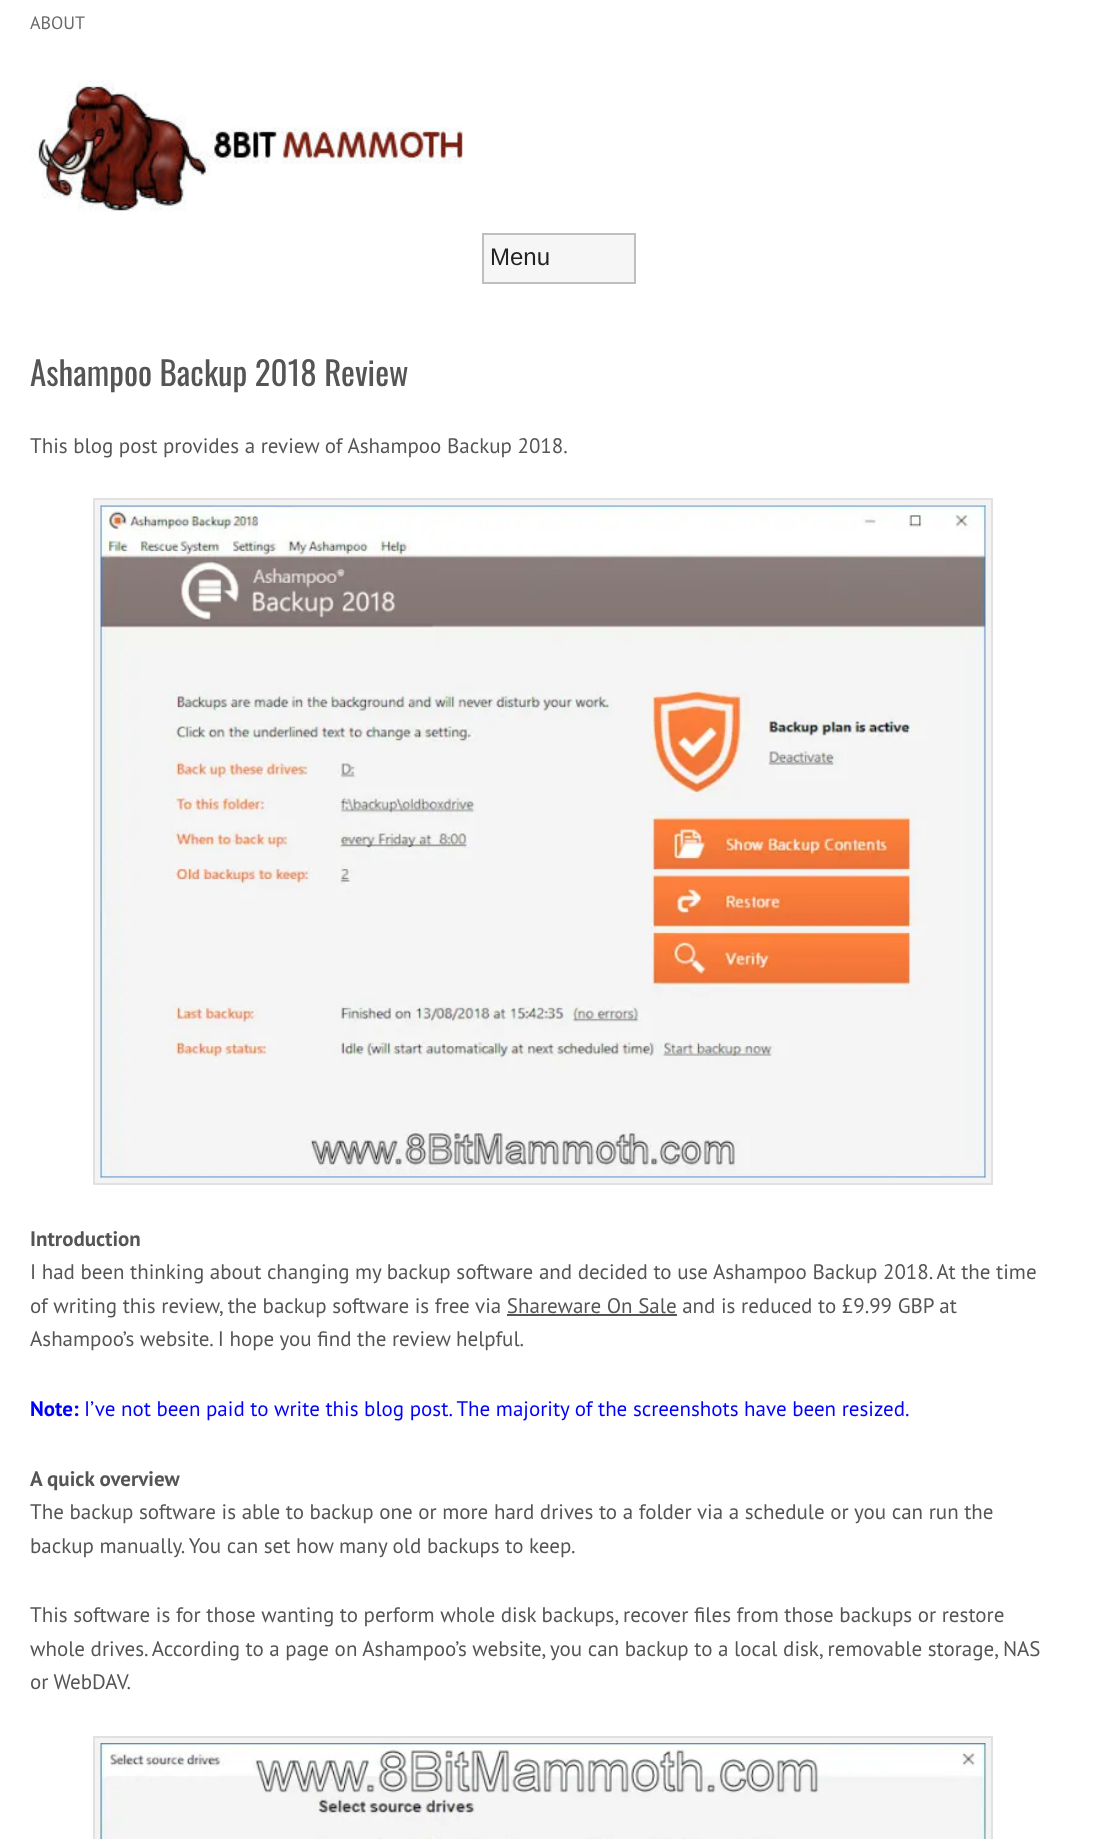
<svg xmlns="http://www.w3.org/2000/svg" width="1116" height="1839" viewBox="0 0 1116 1839">
  <style>
    .t1 { font: 18px PT Sans; fill: #6a6a6a; }
    .t2 { font: 24px Liberation Sans; fill: #222; }
    .t3 { font: 33px Oswald; fill: #555; }
    .t4 { font: 21px PT Sans; fill: #555; }
    .t5 { font: bold 21px PT Sans; fill: #555; }
    .t6 { font: bold 21px PT Sans; fill: #00f; }
    .t7 { font: 21px PT Sans; fill: #00f; }
  </style>
  <rect width="100%" height="100%" fill="#fff"/>
  <text x="30" y="29" class="t1">ABOUT</text>
  <image x="30" y="79" width="433" height="133" href="images/1.png"/>
  <rect x="483" y="234" width="152" height="49" fill="#f6f6f6" stroke="#bfbfbf" stroke-width="2"/>
  <text x="490" y="265" class="t2">Menu</text>
  <text x="30" y="386" class="t3">Ashampoo Backup 2018 Review</text>
  <text x="30" y="453" class="t4">This blog post provides a review of Ashampoo Backup 2018.</text>
  <rect x="94" y="499" width="898" height="685" fill="#f3f3f3" stroke="#e1e1e1" stroke-width="2"/>
  <image x="100" y="505" width="886" height="673" href="images/2.png"/>
  <text x="30" y="1246" class="t5">Introduction</text>
  <text x="30" y="1279" class="t4">I had been thinking about changing my backup software and decided to use Ashampoo Backup 2018. At the time</text>
  <text x="30" y="1313" class="t4">of writing this review, the backup software is free via Shareware On Sale and is reduced to £9.99 GBP at</text>
  <rect x="507" y="1314" width="170" height="2" fill="#555"/>
  <text x="30" y="1346" class="t4">Ashampoo’s website. I hope you find the review helpful.</text>
  <text x="30" y="1416" class="t6">Note:</text>
  <text x="84" y="1416" class="t7">I’ve not been paid to write this blog post. The majority of the screenshots have been resized.</text>
  <text x="30" y="1486" class="t5">A quick overview</text>
  <text x="30" y="1519" class="t4">The backup software is able to backup one or more hard drives to a folder via a schedule or you can run the</text>
  <text x="30" y="1553" class="t4">backup manually. You can set how many old backups to keep.</text>
  <text x="30" y="1622" class="t4">This software is for those wanting to perform whole disk backups, recover files from those backups or restore</text>
  <text x="30" y="1656" class="t4">whole drives. According to a page on Ashampoo’s website, you can backup to a local disk, removable storage, NAS</text>
  <text x="30" y="1689" class="t4">or WebDAV.</text>
  <rect x="94" y="1737" width="898" height="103" fill="#f3f3f3" stroke="#e1e1e1" stroke-width="2"/>
  <image x="100" y="1743" width="886" height="96" href="images/3.png"/>
</svg>
